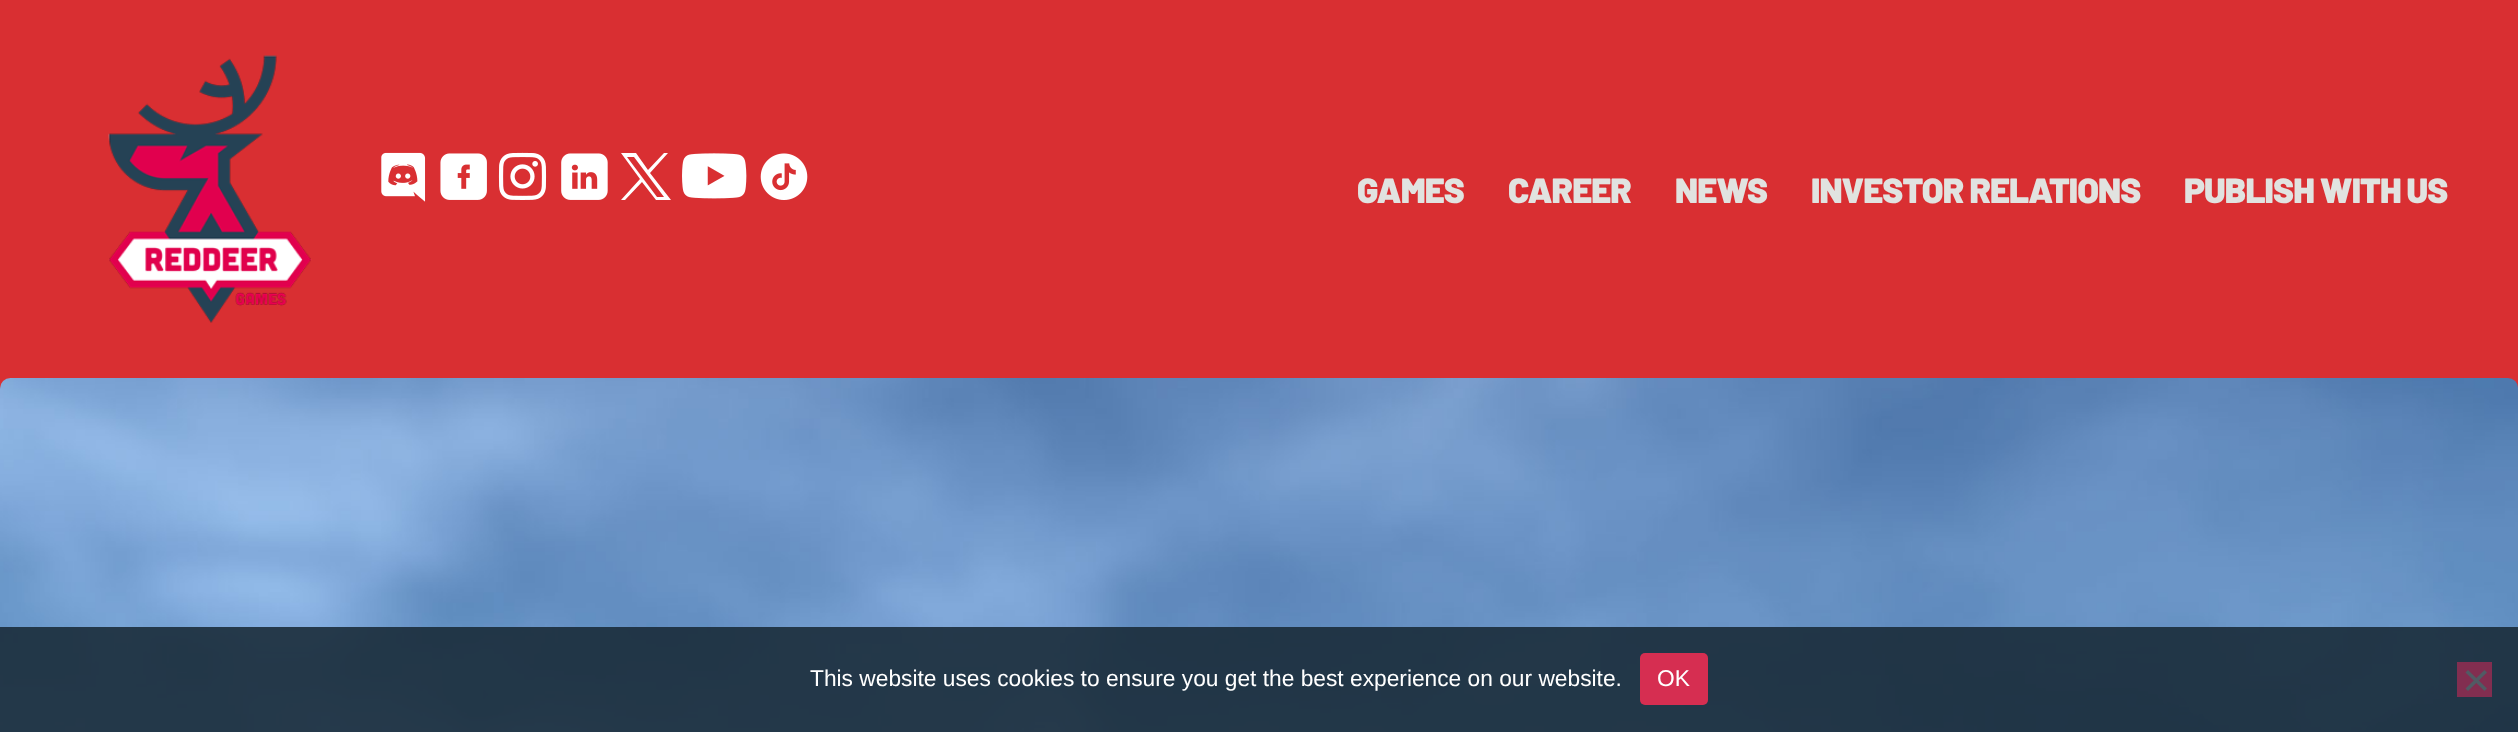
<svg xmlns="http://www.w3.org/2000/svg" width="2518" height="732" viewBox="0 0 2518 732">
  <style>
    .t1 { font: 900 35px Barlow; letter-spacing: -0.9px; fill: #e1e3e0; }
    .t2 { font: 22.75px Liberation Sans; fill: #fff; }
  </style>
  <rect width="100%" height="100%" fill="#d92f32"/>
  <image x="108" y="55" width="204" height="268" href="images/1.png"/>
  <image x="381" y="152" width="45" height="50" href="images/2.png"/>
  <image x="440" y="153" width="47" height="47" href="images/3.png"/>
  <image x="498" y="152" width="49" height="48" href="images/4.png"/>
  <image x="561" y="153" width="47" height="47" href="images/5.png"/>
  <path d="M621 153L640 179L621 200H625L642 182L656 200H671L650 173L668 153H664L648 170L636 153ZM627 157H634L664 197H657Z" fill="#fff"/>
  <image x="682" y="153" width="65" height="46" href="images/6.png"/>
  <image x="760" y="153" width="48" height="47" href="images/7.png"/>
  <text x="1357" y="203" class="t1">GAMES</text>
  <text x="1508" y="203" class="t1">CAREER</text>
  <text x="1675" y="203" class="t1">NEWS</text>
  <text x="1811" y="203" class="t1">INVESTOR RELATIONS</text>
  <text x="2184" y="203" class="t1">PUBLISH WITH US</text>
  <image x="0" y="378" width="2518" height="354" href="images/8.png"/>
  <rect x="0" y="627" width="2518" height="105" fill="#182936e0"/>
  <text x="810" y="686" class="t2">This website uses cookies to ensure you get the best experience on our website.</text>
  <rect x="1640" y="653" width="68" height="52" rx="5" fill="#d62e51"/>
  <text x="1657" y="686" class="t2">OK</text>
  <rect x="2457" y="662" width="35" height="35" fill="#822e50"/>
  <path d="M2484.5 670L2487 672.5L2468 691L2465.5 688.5Z" fill="#515b64"/>
  <path d="M2465.5 672.5L2468 670L2487 688.5L2484.5 691Z" fill="#515b64"/>
</svg>
